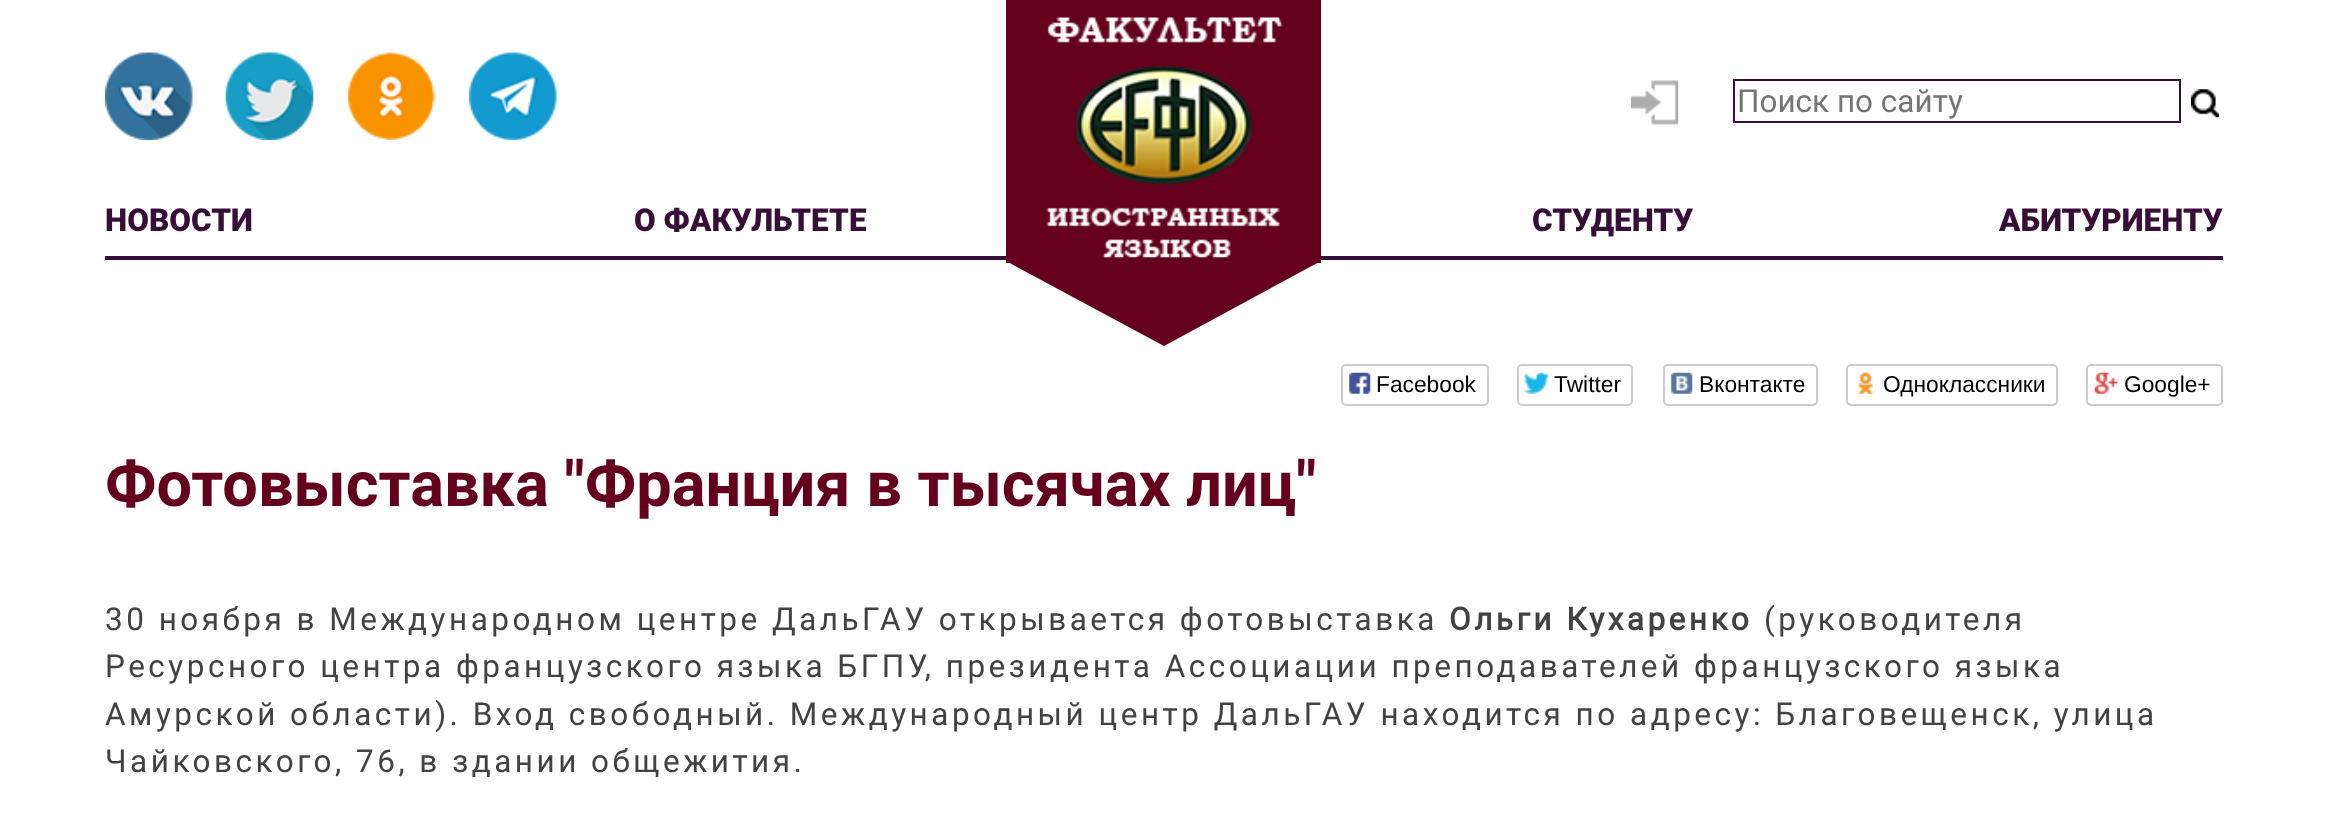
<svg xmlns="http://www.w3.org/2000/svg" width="2326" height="835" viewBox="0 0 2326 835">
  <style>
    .t1 { font: 31.5px Roboto; fill: #757575; }
    .t2 { font: 900 31.5px Roboto; fill: #370e37; }
    .t3 { font: 22.75px Liberation Sans; fill: #000; }
    .t4 { font: bold 63px Roboto; fill: #64001e; }
    .t5 { font: 31.5px Roboto; letter-spacing: 3.5px; fill: #424242; }
    .t6 { font: bold 31.5px 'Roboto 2'; letter-spacing: 3.5px; fill: #424242; }
  </style>
  <rect width="100%" height="100%" fill="#fff"/>
  <image x="105" y="52" width="88" height="88" href="images/1.png"/>
  <image x="225" y="52" width="89" height="88" href="images/2.png"/>
  <image x="348" y="52" width="88" height="88" href="images/3.png"/>
  <image x="469" y="52" width="88" height="88" href="images/4.png"/>
  <rect x="105" y="256" width="2118" height="4" fill="#370e37"/>
  <rect x="1006" y="0" width="315" height="263" fill="#64001e"/>
  <image x="1046" y="17" width="237" height="241" href="images/5.png"/>
  <path d="M1006 261H1321L1164 346Z" fill="#64001e"/>
  <image x="1631" y="80" width="48" height="45" href="images/6.png"/>
  <rect x="1734" y="80" width="446" height="42" fill="none" stroke="#370e37" stroke-width="2"/>
  <text x="1737" y="112" class="t1">Поиск по сайту</text>
  <image x="2191" y="89" width="28" height="29" href="images/7.png"/>
  <text x="105" y="231" class="t2">НОВОСТИ</text>
  <text x="634" y="231" class="t2">О ФАКУЛЬТЕТЕ</text>
  <text x="1532" y="231" class="t2">СТУДЕНТУ</text>
  <text x="1999" y="231" class="t2">АБИТУРИЕНТУ</text>
  <rect x="1342" y="365" width="146" height="40" rx="4" fill="none" stroke="#ccc" stroke-width="2"/>
  <image x="1349" y="372" width="22" height="22" href="images/8.png"/>
  <text x="1376" y="392" class="t3">Facebook</text>
  <rect x="1518" y="365" width="114" height="40" rx="4" fill="none" stroke="#ccc" stroke-width="2"/>
  <image x="1524" y="372" width="25" height="22" href="images/9.png"/>
  <text x="1554" y="392" class="t3">Twitter</text>
  <rect x="1664" y="365" width="153" height="40" rx="4" fill="none" stroke="#ccc" stroke-width="2"/>
  <image x="1671" y="372" width="22" height="22" href="images/10.png"/>
  <text x="1699" y="392" class="t3">Вконтакте</text>
  <rect x="1847" y="365" width="210" height="40" rx="4" fill="none" stroke="#ccc" stroke-width="2"/>
  <image x="1858" y="372" width="15" height="22" href="images/11.png"/>
  <text x="1883" y="392" class="t3">Одноклассники</text>
  <rect x="2087" y="365" width="135" height="40" rx="4" fill="none" stroke="#ccc" stroke-width="2"/>
  <image x="2094" y="372" width="24" height="22" href="images/12.png"/>
  <text x="2124" y="392" class="t3">Google+</text>
  <text x="105" y="506" class="t4">Фотовыставка "Франция в тысячах лиц"</text>
  <text x="105" y="630" class="t5">30 ноября в Международном центре ДальГАУ открывается фотовыставка</text>
  <text x="1449" y="630" class="t6">Ольги Кухаренко</text>
  <text x="1764" y="630" class="t5">(руководителя</text>
  <text x="105" y="677" class="t5">Ресурсного центра французского языка БГПУ, президента Ассоциации преподавателей французского языка</text>
  <text x="105" y="725" class="t5">Амурской области). Вход свободный. Международный центр ДальГАУ находится по адресу: Благовещенск, улица</text>
  <text x="105" y="772" class="t5">Чайковского, 76, в здании общежития.</text>
</svg>
